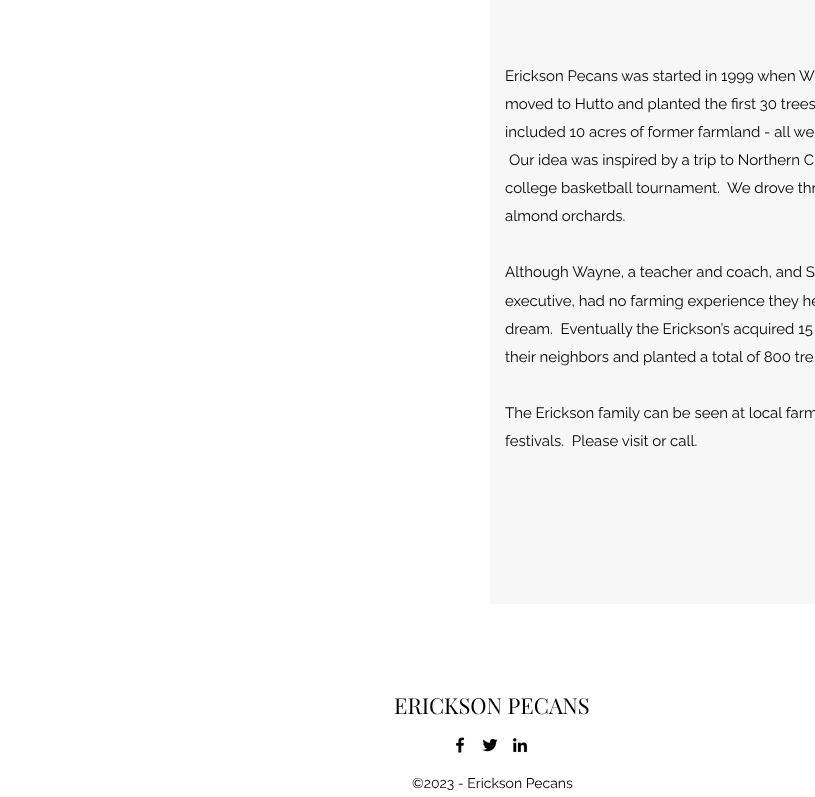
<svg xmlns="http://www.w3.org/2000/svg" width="815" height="797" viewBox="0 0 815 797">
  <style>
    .t1 { font: 15px Raleway; fill: #000; }
    .t2 { font: 22px Playfair Display; fill: #000; }
    .t3 { font: 14px Raleway; fill: #000; }
  </style>
  <rect width="100%" height="100%" fill="#fff"/>
  <rect x="490" y="0" width="325" height="604" fill="#f7f7f7"/>
  <text x="505" y="81" class="t1">Erickson Pecans was started in 1999 when W</text>
  <text x="505" y="109" class="t1">moved to Hutto and planted the first 30 trees</text>
  <text x="505" y="137" class="t1">included 10 acres of former farmland - all we</text>
  <text x="509" y="165" class="t1">Our idea was inspired by a trip to Northern C</text>
  <text x="505" y="193" class="t1" xml:space="preserve">college basketball tournament.  We drove thr</text>
  <text x="505" y="221" class="t1">almond orchards.</text>
  <text x="505" y="277" class="t1">Although Wayne, a teacher and coach, and S</text>
  <text x="505" y="306" class="t1">executive, had no farming experience they he</text>
  <text x="505" y="334" class="t1" xml:space="preserve">dream.  Eventually the Erickson’s acquired 15</text>
  <text x="505" y="362" class="t1">their neighbors and planted a total of 800 tre</text>
  <text x="505" y="418" class="t1">The Erickson family can be seen at local farm</text>
  <text x="505" y="446" class="t1" xml:space="preserve">festivals.  Please visit or call.</text>
  <text x="394" y="714" class="t2">ERICKSON PECANS</text>
  <image x="456" y="737" width="9" height="16" href="images/1.png"/>
  <image x="482" y="738" width="16" height="14" href="images/2.png"/>
  <image x="513" y="738" width="15" height="15" href="images/3.png"/>
  <text x="412" y="788" class="t3">©2023 - Erickson Pecans</text>
</svg>
